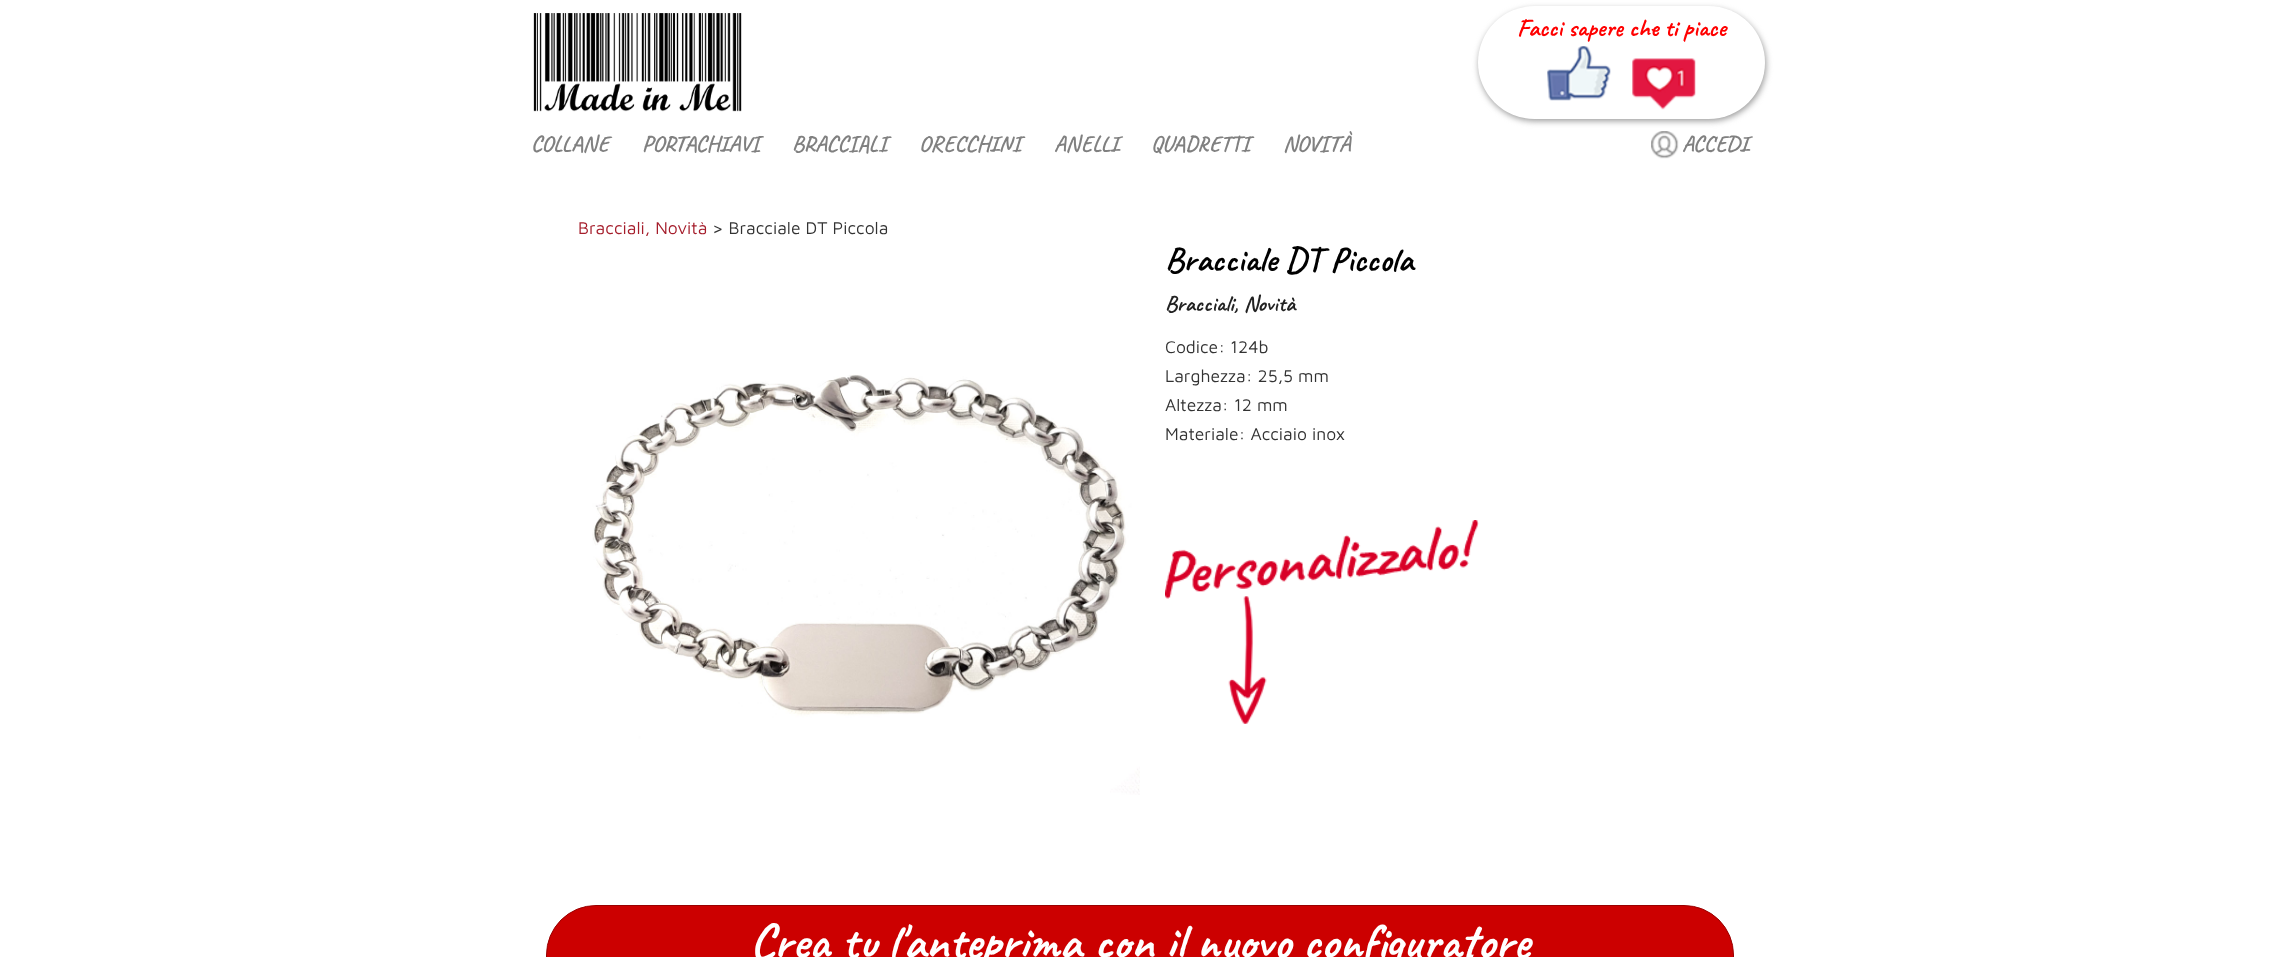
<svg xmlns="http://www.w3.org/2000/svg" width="2279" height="957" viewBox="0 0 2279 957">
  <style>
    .t1 { font: bold 25px Caveat; fill: #f00; }
    .t2 { font: bold 22.5px Caveat; fill: #808080; }
    .t3 { font: 17.5px Maven Pro; fill: #a51d2b; }
    .t4 { font: 17.5px Maven Pro; fill: #333; }
    .t5 { font: bold 35px Caveat; fill: #000; }
    .t6 { font: bold 22.5px Caveat; fill: #222; }
    .t7 { font: bold 50px Caveat; fill: #fff; }
  </style>
  <rect width="100%" height="100%" fill="#fff"/>
  <image x="533" y="13" width="209" height="99" href="images/1.png"/>
  <rect x="1479" y="9" width="287" height="112" rx="56" fill="#999" filter="blur(3px)"/>
  <rect x="1478" y="6" width="287" height="113" rx="56.5" fill="#fff"/>
  <text x="1517" y="36" class="t1">Facci sapere che ti piace</text>
  <image x="1547" y="46" width="64" height="55" href="images/2.png"/>
  <image x="1632" y="58" width="64" height="52" href="images/3.png"/>
  <text x="531" y="151" class="t2">COLLANE</text>
  <text x="642" y="151" class="t2">PORTACHIAVI</text>
  <text x="792" y="151" class="t2">BRACCIALI</text>
  <text x="919" y="151" class="t2">ORECCHINI</text>
  <text x="1054" y="151" class="t2">ANELLI</text>
  <text x="1151" y="151" class="t2">QUADRETTI</text>
  <text x="1283" y="151" class="t2">NOVITÀ</text>
  <image x="1651" y="131" width="28" height="28" href="images/4.png"/>
  <text x="1682" y="151" class="t2">ACCEDI</text>
  <text x="578" y="234" class="t3">Bracciali, Novità</text>
  <text x="712" y="234" class="t4">&gt; Bracciale DT Piccola</text>
  <text x="1165" y="271" class="t5">Bracciale DT Piccola</text>
  <text x="1165" y="311" class="t6">Bracciali, Novità</text>
  <text x="1165" y="353" class="t4">Codice: 124b</text>
  <text x="1165" y="382" class="t4">Larghezza: 25,5 mm</text>
  <text x="1165" y="411" class="t4">Altezza: 12 mm</text>
  <text x="1165" y="440" class="t4">Materiale: Acciaio inox</text>
  <image x="1165" y="520" width="314" height="204" href="images/5.png"/>
  <image x="592" y="374" width="548" height="421" href="images/6.png"/>
  <rect x="546.5" y="905.5" width="1187" height="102" rx="49.5" fill="#c00" stroke="#900"/>
  <text x="750" y="958" class="t7">Crea tu l'anteprima con il nuovo configuratore</text>
</svg>
